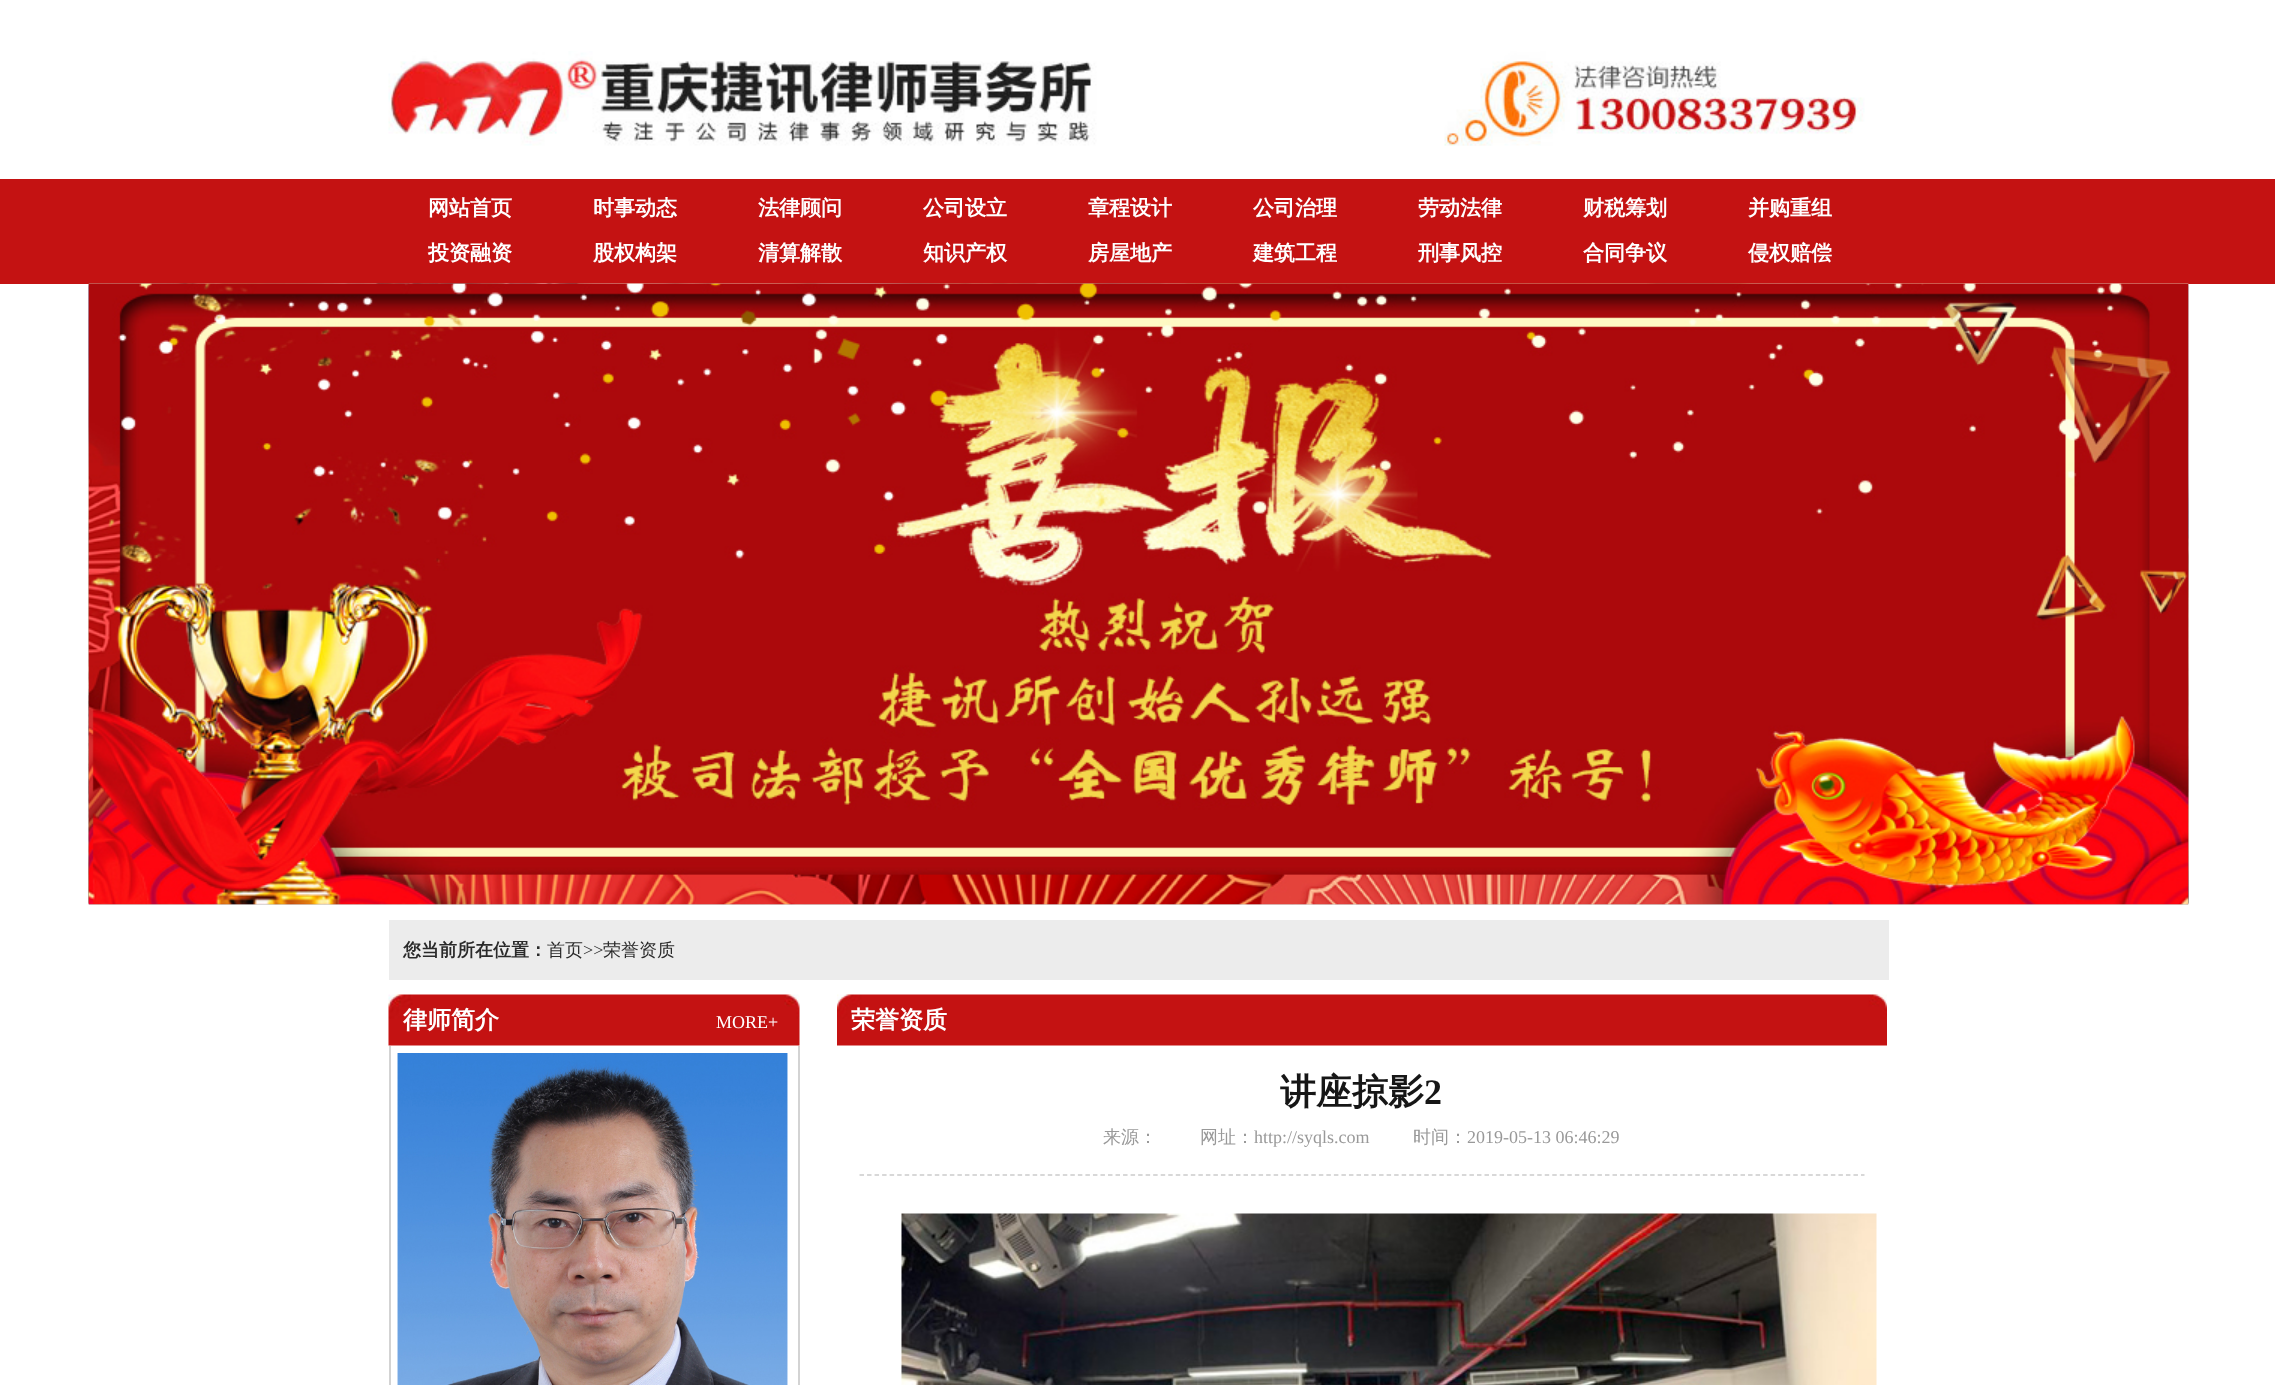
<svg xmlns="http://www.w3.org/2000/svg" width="2275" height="1385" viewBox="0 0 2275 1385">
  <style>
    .t1 { font: bold 21px WenQuanYi Zen Hei; fill: #fff; }
    .t2 { font: bold 18px WenQuanYi Zen Hei; fill: #2a2a2a; }
    .t3 { font: 500 18px WenQuanYi Zen Hei; fill: #2a2a2a; }
    .t4 { font: 18px Liberation Serif; fill: #2a2a2a; }
    .t5 { font: bold 24px WenQuanYi Zen Hei; fill: #fff; }
    .t6 { font: 18px Liberation Serif; fill: #fff; }
    .t7 { font: bold 36px WenQuanYi Zen Hei; fill: #161616; }
    .t8 { font: bold 36px Liberation Serif; fill: #161616; }
    .t9 { font: 500 18px WenQuanYi Zen Hei; fill: #999; }
    .t10 { font: 18px Liberation Serif; fill: #999; }
  </style>
  <rect width="100%" height="100%" fill="#fff"/>
  <image x="388" y="51" width="1477" height="95" href="images/1.png"/>
  <rect x="0" y="179" width="2275" height="105" fill="#c41212"/>
  <text x="428" y="215" class="t1">网站首页</text>
  <text x="593" y="215" class="t1">时事动态</text>
  <text x="758" y="215" class="t1">法律顾问</text>
  <text x="923" y="215" class="t1">公司设立</text>
  <text x="1088" y="215" class="t1">章程设计</text>
  <text x="1253" y="215" class="t1">公司治理</text>
  <text x="1418" y="215" class="t1">劳动法律</text>
  <text x="1583" y="215" class="t1">财税筹划</text>
  <text x="1748" y="215" class="t1">并购重组</text>
  <text x="428" y="260" class="t1">投资融资</text>
  <text x="593" y="260" class="t1">股权构架</text>
  <text x="758" y="260" class="t1">清算解散</text>
  <text x="923" y="260" class="t1">知识产权</text>
  <text x="1088" y="260" class="t1">房屋地产</text>
  <text x="1253" y="260" class="t1">建筑工程</text>
  <text x="1418" y="260" class="t1">刑事风控</text>
  <text x="1583" y="260" class="t1">合同争议</text>
  <text x="1748" y="260" class="t1">侵权赔偿</text>
  <image x="88" y="283" width="2101" height="621" href="images/2.png"/>
  <image x="88" y="283" width="2101" height="622" href="images/3.png"/>
  <image x="88" y="283" width="2101" height="622" href="images/4.png"/>
  <image x="88" y="283" width="2101" height="622" href="images/5.png"/>
  <rect x="389" y="920" width="1500" height="60" fill="#ececec"/>
  <text x="403" y="956" class="t2">您当前所在位置：</text>
  <text x="547" y="956" class="t3">首页</text>
  <text x="583" y="956" class="t4">&gt;&gt;</text>
  <text x="603" y="956" class="t3">荣誉资质</text>
  <image x="388" y="994" width="412" height="52" href="images/6.png"/>
  <text x="403" y="1028" class="t5">律师简介</text>
  <text x="716" y="1028" class="t6">MORE+</text>
  <rect x="798" y="1046" width="2" height="339" fill="#d3d3d3"/>
  <rect x="389" y="1046" width="2" height="339" fill="#d3d3d3"/>
  <image x="397" y="1053" width="391" height="332" href="images/7.png"/>
  <image x="837" y="994" width="1050" height="52" href="images/8.png"/>
  <text x="851" y="1028" class="t5">荣誉资质</text>
  <path d="M859.5 1175H1864.5" fill="none" stroke="#ccc" stroke-width="1.5" stroke-dasharray="4.5 3.03"/>
  <text x="1280" y="1104" class="t7">讲座掠影</text>
  <text x="1424" y="1104" class="t8">2</text>
  <text x="1103" y="1143" class="t9">来源：</text>
  <text x="1200" y="1143" class="t9">网址：</text>
  <text x="1254" y="1143" class="t10">http://syqls.com</text>
  <text x="1413" y="1143" class="t9">时间：</text>
  <text x="1467" y="1143" class="t10">2019-05-13 06:46:29</text>
  <image x="901" y="1213" width="976" height="172" href="images/9.png"/>
</svg>
